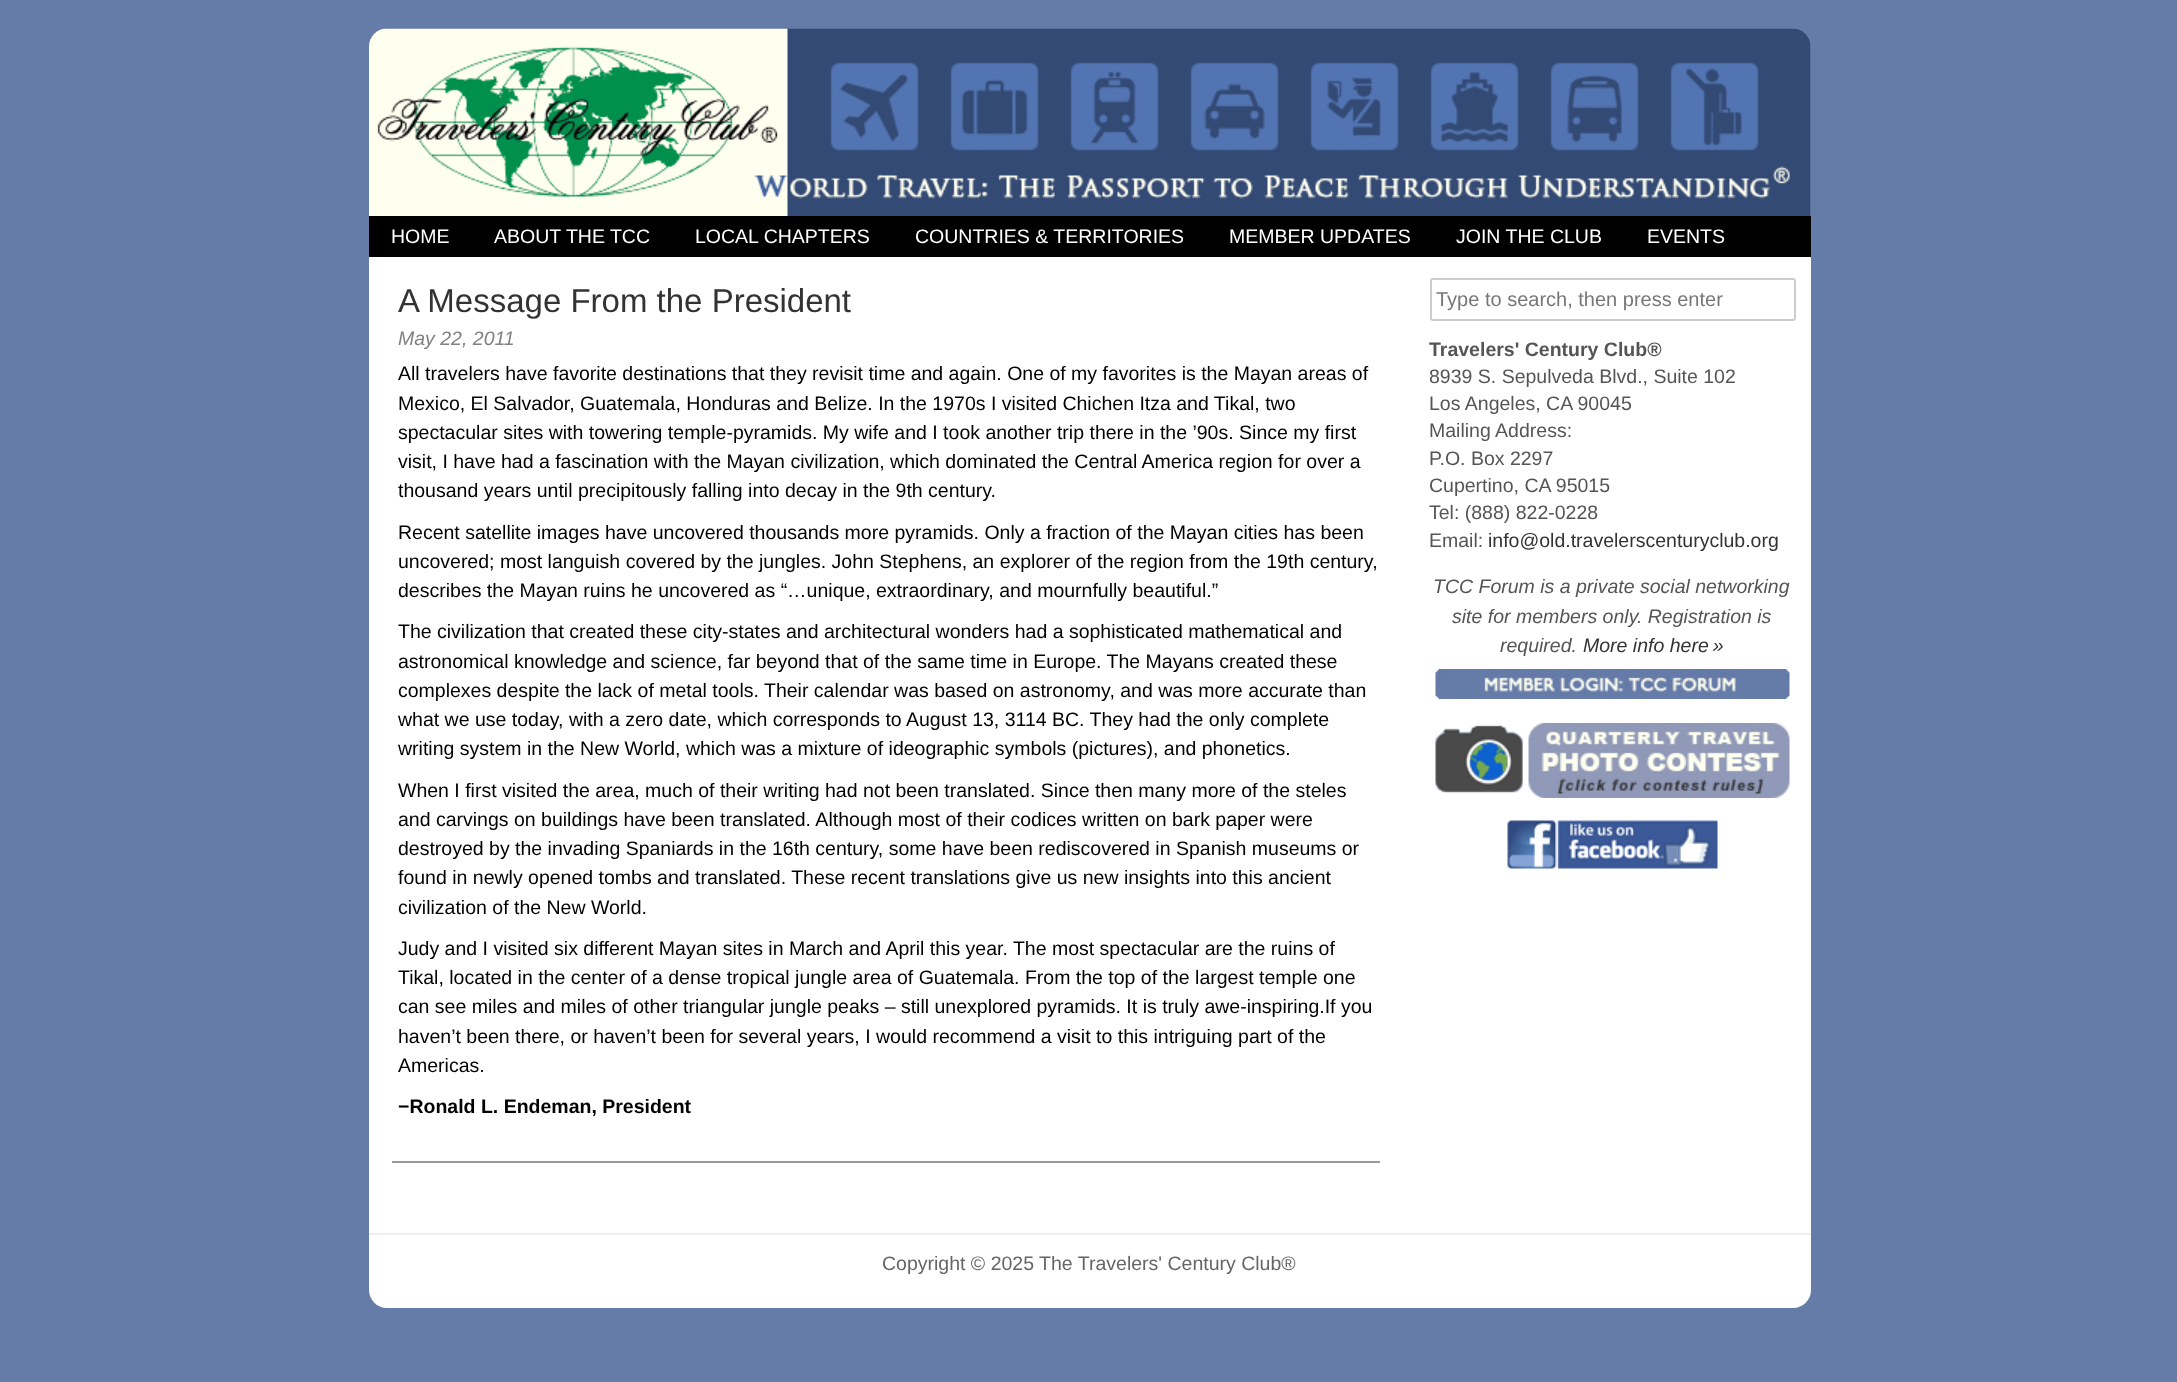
<svg xmlns="http://www.w3.org/2000/svg" width="2177" height="1382" viewBox="0 0 2177 1382">
  <style>
    .t1 { font: 19.5px Liberation Sans; fill: #fff; }
    .t2 { font: 33px Liberation Sans; fill: #333; }
    .t3 { font: italic 19.5px Liberation Sans; fill: #818181; }
    .t4 { font: 19.5px Liberation Sans; fill: #000; }
    .t5 { font: bold 19.5px Liberation Sans; fill: #000; }
    .t6 { font: 20px Liberation Sans; fill: #777; }
    .t7 { font: bold 19.5px Liberation Sans; fill: #555; }
    .t8 { font: 19.5px Liberation Sans; fill: #555; }
    .t9 { font: 19.5px Liberation Sans; fill: #333; }
    .t10 { font: italic 19.5px Liberation Sans; fill: #555; }
    .t11 { font: italic 19.5px Liberation Sans; fill: #333; }
    .t12 { font: 19.5px Liberation Sans; fill: #666; }
  </style>
  <rect width="100%" height="100%" fill="#657ba8"/>
  <image x="369" y="28" width="1442" height="188" href="images/1.png"/>
  <path d="M369 216H1811V1290C1811 1300 1803 1308 1793 1308H387C377 1308 369 1300 369 1290Z" fill="#fff"/>
  <rect x="369" y="216" width="1442" height="41" fill="#000"/>
  <text x="391" y="243" class="t1">HOME</text>
  <text x="494" y="243" class="t1">ABOUT THE TCC</text>
  <text x="695" y="243" class="t1">LOCAL CHAPTERS</text>
  <text x="915" y="243" class="t1">COUNTRIES &amp; TERRITORIES</text>
  <text x="1229" y="243" class="t1">MEMBER UPDATES</text>
  <text x="1456" y="243" class="t1">JOIN THE CLUB</text>
  <text x="1647" y="243" class="t1">EVENTS</text>
  <rect x="392" y="1161" width="988" height="2" fill="#999"/>
  <text x="398" y="312" class="t2">A Message From the President</text>
  <text x="398" y="345" class="t3">May 22, 2011</text>
  <text x="398" y="380" class="t4">All travelers have favorite destinations that they revisit time and again. One of my favorites is the Mayan areas of</text>
  <text x="398" y="410" class="t4">Mexico, El Salvador, Guatemala, Honduras and Belize. In the 1970s I visited Chichen Itza and Tikal, two</text>
  <text x="398" y="439" class="t4">spectacular sites with towering temple-pyramids. My wife and I took another trip there in the ’90s. Since my first</text>
  <text x="398" y="468" class="t4">visit, I have had a fascination with the Mayan civilization, which dominated the Central America region for over a</text>
  <text x="398" y="497" class="t4">thousand years until precipitously falling into decay in the 9th century.</text>
  <text x="398" y="539" class="t4">Recent satellite images have uncovered thousands more pyramids. Only a fraction of the Mayan cities has been</text>
  <text x="398" y="568" class="t4">uncovered; most languish covered by the jungles. John Stephens, an explorer of the region from the 19th century,</text>
  <text x="398" y="597" class="t4">describes the Mayan ruins he uncovered as “…unique, extraordinary, and mournfully beautiful.”</text>
  <text x="398" y="638" class="t4">The civilization that created these city-states and architectural wonders had a sophisticated mathematical and</text>
  <text x="398" y="668" class="t4">astronomical knowledge and science, far beyond that of the same time in Europe. The Mayans created these</text>
  <text x="398" y="697" class="t4">complexes despite the lack of metal tools. Their calendar was based on astronomy, and was more accurate than</text>
  <text x="398" y="726" class="t4">what we use today, with a zero date, which corresponds to August 13, 3114 BC. They had the only complete</text>
  <text x="398" y="755" class="t4">writing system in the New World, which was a mixture of ideographic symbols (pictures), and phonetics.</text>
  <text x="398" y="797" class="t4">When I first visited the area, much of their writing had not been translated. Since then many more of the steles</text>
  <text x="398" y="826" class="t4">and carvings on buildings have been translated. Although most of their codices written on bark paper were</text>
  <text x="398" y="855" class="t4">destroyed by the invading Spaniards in the 16th century, some have been rediscovered in Spanish museums or</text>
  <text x="398" y="884" class="t4">found in newly opened tombs and translated. These recent translations give us new insights into this ancient</text>
  <text x="398" y="914" class="t4">civilization of the New World.</text>
  <text x="398" y="955" class="t4">Judy and I visited six different Mayan sites in March and April this year. The most spectacular are the ruins of</text>
  <text x="398" y="984" class="t4">Tikal, located in the center of a dense tropical jungle area of Guatemala. From the top of the largest temple one</text>
  <text x="398" y="1013" class="t4">can see miles and miles of other triangular jungle peaks – still unexplored pyramids. It is truly awe-inspiring.If you</text>
  <text x="398" y="1043" class="t4">haven’t been there, or haven’t been for several years, I would recommend a visit to this intriguing part of the</text>
  <text x="398" y="1072" class="t4">Americas.</text>
  <text x="398" y="1113" class="t5">−Ronald L. Endeman, President</text>
  <rect x="1431" y="279" width="364" height="41" rx="2" fill="none" stroke="#ccc" stroke-width="2"/>
  <text x="1436" y="306" class="t6">Type to search, then press enter</text>
  <text x="1429" y="356" class="t7">Travelers' Century Club®</text>
  <text x="1429" y="383" class="t8">8939 S. Sepulveda Blvd., Suite 102</text>
  <text x="1429" y="410" class="t8">Los Angeles, CA 90045</text>
  <text x="1429" y="437" class="t8">Mailing Address:</text>
  <text x="1429" y="465" class="t8">P.O. Box 2297</text>
  <text x="1429" y="492" class="t8">Cupertino, CA 95015</text>
  <text x="1429" y="519" class="t8">Tel: (888) 822-0228</text>
  <text x="1429" y="547" class="t8">Email:</text>
  <text x="1488" y="547" class="t9">info@old.travelerscenturyclub.org</text>
  <text x="1433" y="593" class="t10">TCC Forum is a private social networking</text>
  <text x="1452" y="623" class="t10">site for members only. Registration is</text>
  <text x="1500" y="652" class="t10">required.</text>
  <text x="1583" y="652" class="t11">More info here »</text>
  <image x="1435" y="669" width="355" height="30" href="images/2.png"/>
  <image x="1435" y="723" width="355" height="75" href="images/3.png"/>
  <image x="1507" y="820" width="211" height="49" href="images/4.png"/>
  <rect x="369" y="1233" width="1442" height="2" fill="#eee"/>
  <text x="882" y="1270" class="t12">Copyright © 2025 The Travelers' Century Club®</text>
</svg>
